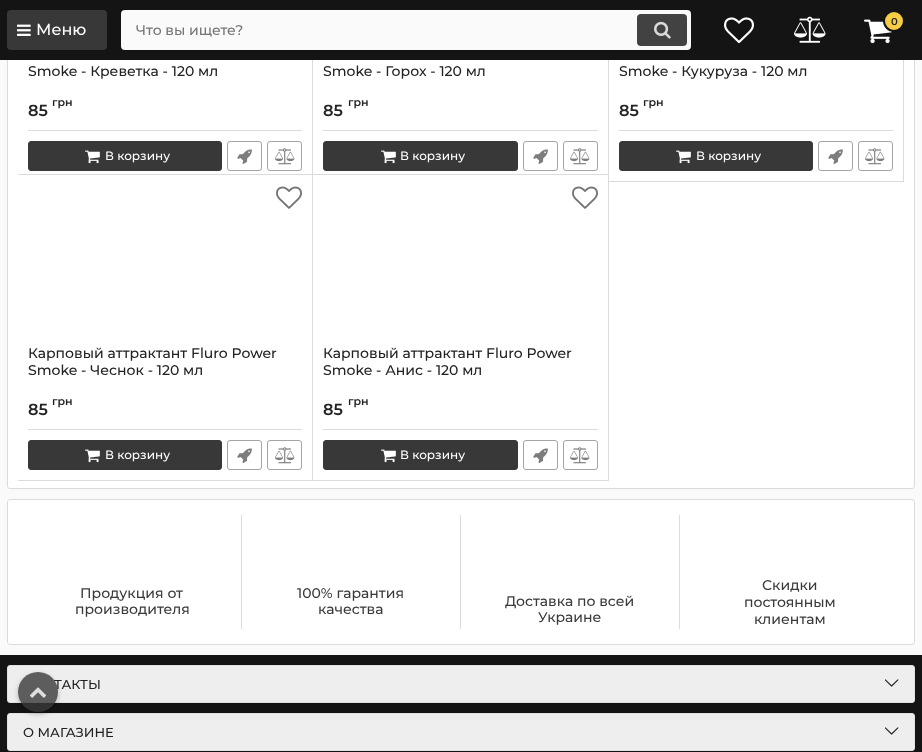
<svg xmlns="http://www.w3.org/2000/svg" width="922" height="752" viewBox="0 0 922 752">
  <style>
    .t1 { font: 600 10px Montserrat; fill: #222; }
    .t2 { font: 500 16px Montserrat; fill: #fff; }
    .t3 { font: 500 14px Montserrat; fill: #757575; }
    .t4 { font: 500 14px Montserrat; fill: #222; }
    .t5 { font: 600 16px Montserrat; fill: #222; }
    .t6 { font: 600 11px Montserrat; fill: #222; }
    .t7 { font: 500 12px Montserrat; fill: #fff; }
    .t8 { font: 500 14px Montserrat; fill: #3a3a3a; }
    .t9 { font: 500 13px Montserrat; fill: #222; }
  </style>
  <defs>
    <clipPath id="clip1"><path d="M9 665H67V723H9ZM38 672C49 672 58 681 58 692C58 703 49 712 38 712C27 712 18 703 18 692C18 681 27 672 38 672Z" clip-rule="evenodd"/></clipPath>
  </defs>
  <rect width="100%" height="100%" fill="#fafafa"/>
  <rect x="7.5" y="-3.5" width="907" height="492" rx="2.5" fill="#fff" stroke="#dbdbdb"/>
  <rect x="0" y="0" width="922" height="60" fill="#141414"/>
  <image x="724" y="17" width="30" height="27" href="images/1.png"/>
  <image x="794" y="16" width="32" height="27" href="images/2.png"/>
  <image x="864" y="19" width="28" height="25" href="images/3.png"/>
  <circle cx="894" cy="21" r="10" fill="#f5cc43" stroke="#141414" stroke-width="2"/>
  <text x="891" y="25" class="t1">0</text>
  <rect x="7" y="10" width="100" height="40" rx="4" fill="#383838"/>
  <image x="17" y="24" width="14" height="12" href="images/4.png"/>
  <text x="36" y="35" class="t2">Меню</text>
  <rect x="121" y="10" width="570" height="40" rx="4" fill="#fafafa"/>
  <text x="136" y="35" class="t3">Что вы ищете?</text>
  <rect x="637" y="14" width="50" height="32" rx="4" fill="#424242"/>
  <image x="654" y="21" width="17" height="18" href="images/5.png"/>
  <rect x="312" y="60" width="1" height="122" fill="#dbdbdb"/>
  <text x="28" y="76" class="t4">Smoke - Креветка - 120 мл</text>
  <text x="28" y="116" class="t5">85</text>
  <text x="52" y="106" class="t6">грн</text>
  <rect x="28" y="130" width="274" height="1" fill="#dbdbdb"/>
  <rect x="28.5" y="141.5" width="193" height="29" rx="2.5" fill="#383838" stroke="#383838"/>
  <image x="85" y="150" width="15" height="14" href="images/6.png"/>
  <text x="105" y="160" class="t7">В корзину</text>
  <rect x="227.5" y="141.5" width="34" height="29" rx="2.5" fill="none" stroke="#a5a5a5"/>
  <image x="237" y="149" width="15" height="15" href="images/7.png"/>
  <rect x="267.5" y="141.5" width="34" height="29" rx="2.5" fill="none" stroke="#a5a5a5"/>
  <image x="275" y="148" width="20" height="17" href="images/8.png"/>
  <rect x="608" y="60" width="1" height="122" fill="#dbdbdb"/>
  <text x="323" y="76" class="t4">Smoke - Горох - 120 мл</text>
  <text x="323" y="116" class="t5">85</text>
  <text x="348" y="106" class="t6">грн</text>
  <rect x="323" y="130" width="275" height="1" fill="#dbdbdb"/>
  <rect x="323.5" y="141.5" width="194" height="29" rx="2.5" fill="#383838" stroke="#383838"/>
  <image x="381" y="150" width="15" height="14" href="images/6.png"/>
  <text x="400" y="160" class="t7">В корзину</text>
  <rect x="523.5" y="141.5" width="34" height="29" rx="2.5" fill="none" stroke="#a5a5a5"/>
  <image x="533" y="149" width="15" height="15" href="images/7.png"/>
  <rect x="563.5" y="141.5" width="34" height="29" rx="2.5" fill="none" stroke="#a5a5a5"/>
  <image x="570" y="148" width="20" height="17" href="images/8.png"/>
  <rect x="903" y="60" width="1" height="122" fill="#dbdbdb"/>
  <rect x="609" y="181" width="295" height="1" fill="#dbdbdb"/>
  <text x="619" y="76" class="t4">Smoke - Кукуруза - 120 мл</text>
  <text x="619" y="116" class="t5">85</text>
  <text x="643" y="106" class="t6">грн</text>
  <rect x="619" y="130" width="274" height="1" fill="#dbdbdb"/>
  <rect x="619.5" y="141.5" width="193" height="29" rx="2.5" fill="#383838" stroke="#383838"/>
  <image x="676" y="150" width="15" height="14" href="images/6.png"/>
  <text x="696" y="160" class="t7">В корзину</text>
  <rect x="818.5" y="141.5" width="34" height="29" rx="2.5" fill="none" stroke="#a5a5a5"/>
  <image x="828" y="149" width="15" height="15" href="images/7.png"/>
  <rect x="858.5" y="141.5" width="34" height="29" rx="2.5" fill="none" stroke="#a5a5a5"/>
  <image x="865" y="148" width="20" height="17" href="images/8.png"/>
  <rect x="18" y="174" width="591" height="1" fill="#dbdbdb"/>
  <rect x="312" y="174" width="1" height="307" fill="#dbdbdb"/>
  <rect x="18" y="480" width="295" height="1" fill="#dbdbdb"/>
  <image x="276" y="186" width="26" height="23" href="images/9.png"/>
  <text x="28" y="358" class="t4">Карповый аттрактант Fluro Power</text>
  <text x="28" y="375" class="t4">Smoke - Чеснок - 120 мл</text>
  <text x="28" y="415" class="t5">85</text>
  <text x="52" y="405" class="t6">грн</text>
  <rect x="28" y="429" width="274" height="1" fill="#dbdbdb"/>
  <rect x="28.5" y="440.5" width="193" height="29" rx="2.5" fill="#383838" stroke="#383838"/>
  <image x="85" y="449" width="15" height="14" href="images/6.png"/>
  <text x="105" y="459" class="t7">В корзину</text>
  <rect x="227.5" y="440.5" width="34" height="29" rx="2.5" fill="none" stroke="#a5a5a5"/>
  <image x="237" y="448" width="15" height="15" href="images/7.png"/>
  <rect x="267.5" y="440.5" width="34" height="29" rx="2.5" fill="none" stroke="#a5a5a5"/>
  <image x="275" y="447" width="20" height="17" href="images/8.png"/>
  <rect x="608" y="174" width="1" height="307" fill="#dbdbdb"/>
  <rect x="313" y="480" width="296" height="1" fill="#dbdbdb"/>
  <image x="572" y="186" width="26" height="23" href="images/9.png"/>
  <text x="323" y="358" class="t4">Карповый аттрактант Fluro Power</text>
  <text x="323" y="375" class="t4">Smoke - Анис - 120 мл</text>
  <text x="323" y="415" class="t5">85</text>
  <text x="348" y="405" class="t6">грн</text>
  <rect x="323" y="429" width="275" height="1" fill="#dbdbdb"/>
  <rect x="323.5" y="440.5" width="194" height="29" rx="2.5" fill="#383838" stroke="#383838"/>
  <image x="381" y="449" width="15" height="14" href="images/6.png"/>
  <text x="400" y="459" class="t7">В корзину</text>
  <rect x="523.5" y="440.5" width="34" height="29" rx="2.5" fill="none" stroke="#a5a5a5"/>
  <image x="533" y="448" width="15" height="15" href="images/7.png"/>
  <rect x="563.5" y="440.5" width="34" height="29" rx="2.5" fill="none" stroke="#a5a5a5"/>
  <image x="570" y="447" width="20" height="17" href="images/8.png"/>
  <rect x="7.5" y="499.5" width="907" height="145" rx="2.5" fill="#fff" stroke="#dbdbdb"/>
  <rect x="241" y="515" width="1" height="114" fill="#dbdbdb"/>
  <text x="80" y="598" class="t8">Продукция от</text>
  <text x="75" y="614" class="t8">производителя</text>
  <rect x="460" y="515" width="1" height="114" fill="#dbdbdb"/>
  <text x="297" y="598" class="t8">100% гарантия</text>
  <text x="318" y="614" class="t8">качества</text>
  <rect x="679" y="515" width="1" height="114" fill="#dbdbdb"/>
  <text x="505" y="606" class="t8">Доставка по всей</text>
  <text x="538" y="622" class="t8">Украине</text>
  <text x="762" y="590" class="t8">Скидки</text>
  <text x="744" y="607" class="t8">постоянным</text>
  <text x="754" y="624" class="t8">клиентам</text>
  <rect x="0" y="655" width="922" height="97" fill="#141414"/>
  <rect x="7.5" y="665.5" width="907" height="37" rx="2.5" fill="#eee" stroke="#e2e2e2"/>
  <rect x="7.5" y="713.5" width="907" height="37" rx="2.5" fill="#eee" stroke="#e2e2e2"/>
  <g clip-path="url(#clip1)">
    <rect x="18" y="674" width="40" height="40" rx="20" fill="#0000003d" filter="blur(2.5px)"/>
  </g>
  <text x="54" y="689" class="t9">ТАКТЫ</text>
  <circle cx="38" cy="692" r="20" fill="#383838cc"/>
  <image x="30" y="687" width="16" height="11" href="images/10.png"/>
  <image x="885" y="679" width="14" height="8" href="images/11.png"/>
  <text x="23" y="737" class="t9">О МАГАЗИНЕ</text>
  <image x="885" y="727" width="14" height="8" href="images/11.png"/>
</svg>
